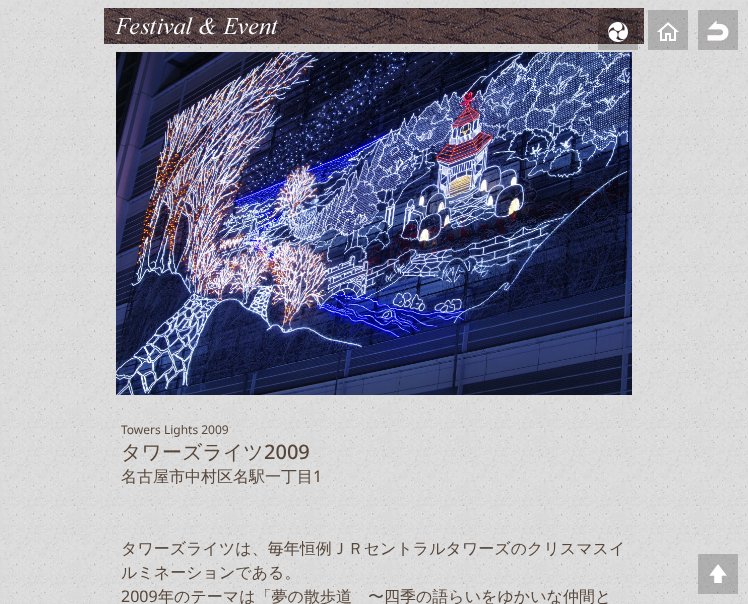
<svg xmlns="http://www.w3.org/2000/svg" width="748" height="604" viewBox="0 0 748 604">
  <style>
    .t1 { font: 12px Noto Sans; fill: #57473a; }
    .t2 { font: 500 20px WenQuanYi Zen Hei; fill: #57473a; }
    .t3 { font: 500 20px Noto Sans; fill: #57473a; }
    .t4 { font: 500 16px WenQuanYi Zen Hei; fill: #57473a; }
    .t5 { font: 16px Noto Sans; fill: #57473a; }
  </style>
  <rect width="100%" height="100%" fill="#fff"/>
  <image x="0" y="0" width="748" height="604" href="images/1.png"/>
  <image x="104" y="8" width="540" height="36" href="images/2.png"/>
  <rect x="598" y="10" width="40" height="40" fill="#00000033"/>
  <image x="608" y="22" width="20" height="20" href="images/3.png"/>
  <rect x="648" y="10" width="40" height="40" fill="#00000033"/>
  <image x="657" y="22" width="22" height="19" href="images/4.png"/>
  <rect x="698" y="10" width="40" height="40" fill="#00000033"/>
  <image x="707" y="20" width="22" height="21" href="images/5.png"/>
  <image x="116" y="52" width="516" height="343" href="images/6.png"/>
  <text x="121" y="434" class="t1">Towers Lights 2009</text>
  <text x="121" y="459" class="t2">タワーズライツ</text>
  <text x="264" y="459" class="t3">2009</text>
  <text x="121" y="482" class="t4">名古屋市中村区名駅一丁目</text>
  <text x="313" y="482" class="t5">1</text>
  <text x="121" y="554" class="t4">タワーズライツは、毎年恒例ＪＲセントラルタワーズのクリスマスイ</text>
  <text x="121" y="578" class="t4">ルミネーションである。</text>
  <text x="121" y="602" class="t5">2009</text>
  <text x="158" y="602" class="t4">年のテーマは「夢の散歩道　〜四季の語らいをゆかいな仲間と</text>
  <rect x="698" y="554" width="40" height="40" fill="#00000033"/>
  <image x="709" y="564" width="18" height="19" href="images/7.png"/>
</svg>
